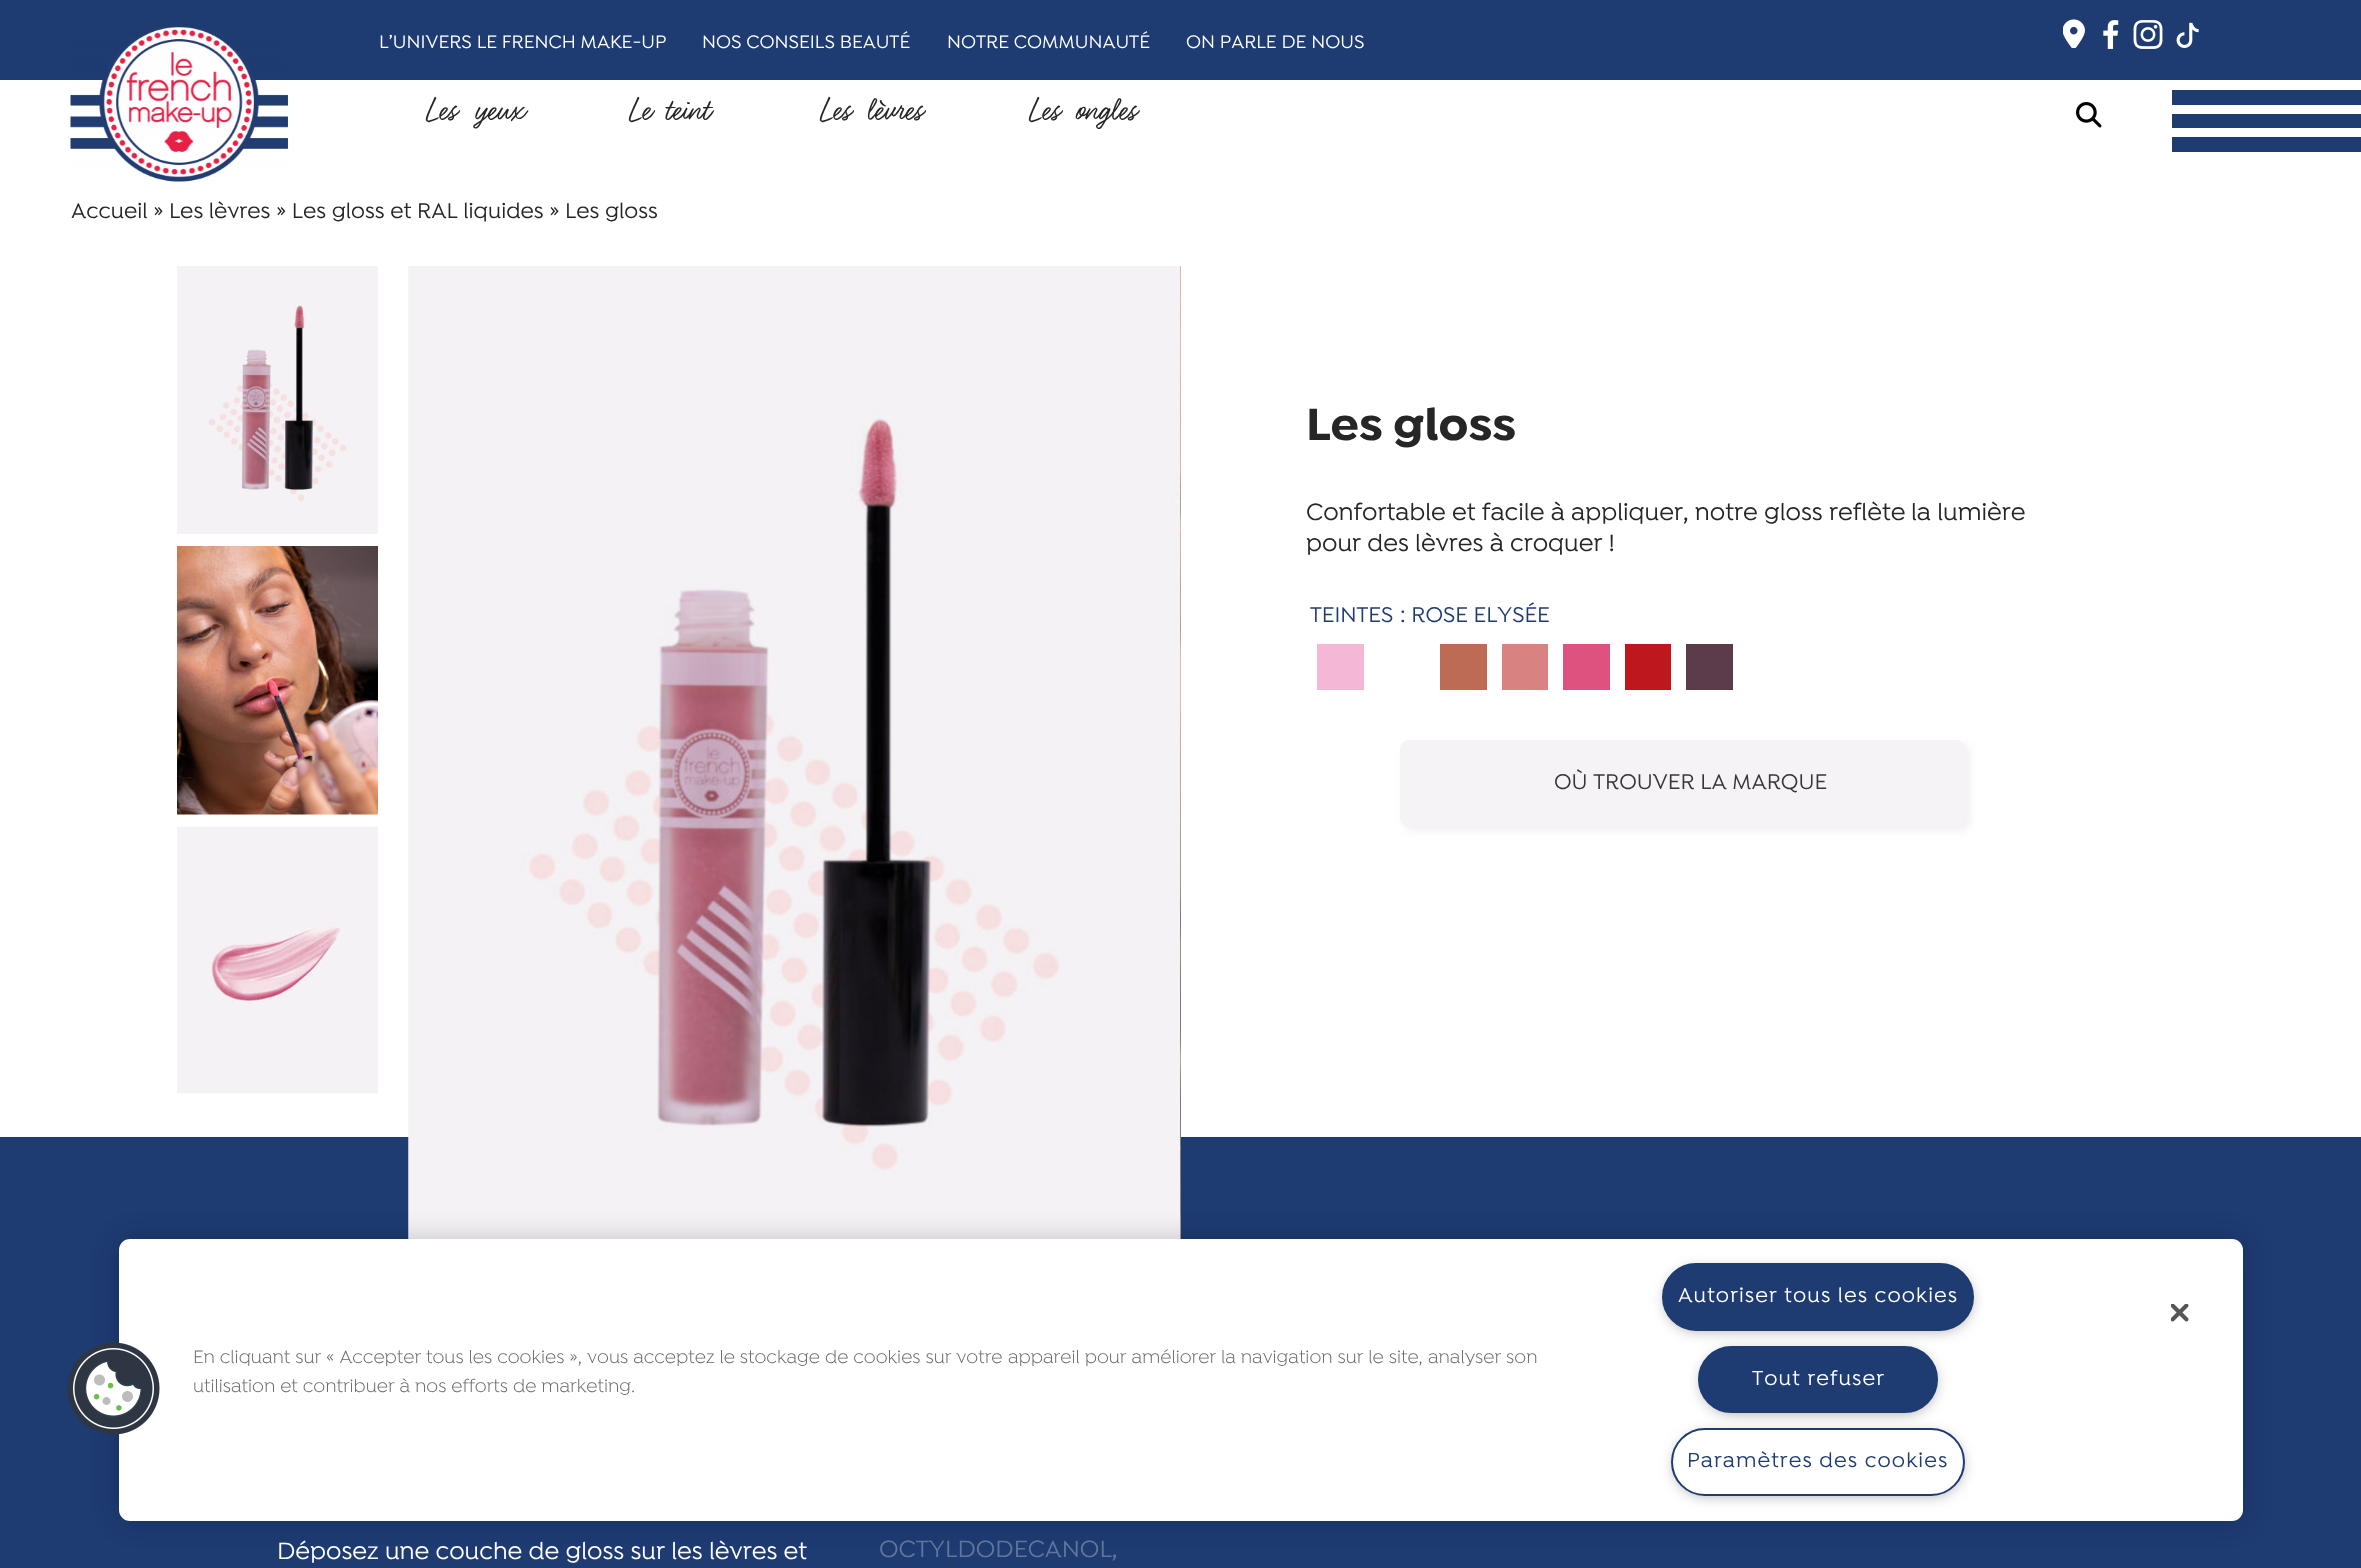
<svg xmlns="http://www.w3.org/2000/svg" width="2361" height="1568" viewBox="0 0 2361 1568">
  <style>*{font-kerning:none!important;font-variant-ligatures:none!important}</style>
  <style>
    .t1 { font: 500 19.4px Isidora; fill: #fff; }
    .t2 { font: 35.5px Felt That; fill: #262626; }
    .t3 { font: 500 22.7px Isidora; fill: #262626; }
    .t4 { font: bold 48px Isidora; fill: #262626; }
    .t5 { font: 500 25.2px Isidora; fill: #262626; }
    .t6 { font: 500 22.7px Isidora; fill: #1e3b72; }
    .t7 { font: 500 22.7px Isidora; fill: #373737; }
    .t8 { font: 500 25.2px Isidora; fill: #fff; }
    .t9 { font: 500 25.2px Isidora; fill: #62769c; }
    .t10 { font: 19.2px Isidora; fill: #696969; }
    .t11 { font: 500 21.6px Isidora; letter-spacing: 1.1px; fill: #fff; }
    .t12 { font: 500 21.6px Isidora; letter-spacing: 1.1px; fill: #1e3b72; }
  </style>
  <rect width="100%" height="100%" fill="#fff"/>
  <rect x="0" y="0" width="2361" height="80" fill="#1e3b72"/>
  <image x="70" y="27" width="218" height="155" href="images/1.png"/>
  <text x="379" y="48" class="t1">L’UNIVERS LE FRENCH MAKE-UP</text>
  <text x="702" y="48" class="t1">NOS CONSEILS BEAUTÉ</text>
  <text x="947" y="48" class="t1">NOTRE COMMUNAUTÉ</text>
  <text x="1186" y="48" class="t1">ON PARLE DE NOUS</text>
  <text x="425" y="119" word-spacing="7" class="t2">Les yeux</text>
  <text x="628" y="119" word-spacing="2" class="t2">Le teint</text>
  <text x="819" y="119" word-spacing="5" class="t2">Les lèvres</text>
  <text x="1028" y="119" word-spacing="5" class="t2">Les ongles</text>
  <image x="2063" y="19" width="22" height="29" href="images/2.png"/>
  <image x="2103" y="20" width="16" height="29" href="images/3.png"/>
  <image x="2133" y="20" width="30" height="29" href="images/4.png"/>
  <image x="2176" y="22" width="23" height="26" href="images/5.png"/>
  <image x="2076" y="102" width="26" height="26" href="images/6.png"/>
  <rect x="2172" y="90" width="189" height="15" fill="#1e3b72"/>
  <rect x="2172" y="114" width="189" height="14" fill="#1e3b72"/>
  <rect x="2172" y="137" width="189" height="15" fill="#1e3b72"/>
  <text x="71" y="218" class="t3">Accueil » Les lèvres » Les gloss et RAL liquides » Les gloss</text>
  <image x="177" y="266" width="201" height="268" href="images/7.png"/>
  <image x="177" y="546" width="201" height="269" href="images/8.png"/>
  <image x="177" y="826" width="201" height="268" href="images/9.png"/>
  <rect x="0" y="1137" width="2361" height="431" fill="#1e3b72"/>
  <image x="408" y="266" width="773" height="973" href="images/10.png"/>
  <image x="1180" y="266" width="1" height="973" href="images/11.png"/>
  <text x="1306" y="440" class="t4">Les gloss</text>
  <text x="1306" y="520" class="t5">Confortable et facile à appliquer, notre gloss reflète</text>
  <text x="1911" y="520" class="t5">la lumière</text>
  <text x="1306" y="551" class="t5">pour des lèvres à croquer !</text>
  <text x="1310" y="622" class="t6">TEINTES</text>
  <text x="1400" y="622" class="t6">: ROSE ELYSÉE</text>
  <rect x="1317" y="644" width="47" height="46" fill="#f4b7d6"/>
  <rect x="1440" y="644" width="47" height="46" fill="#bd6b55"/>
  <rect x="1502" y="644" width="46" height="46" fill="#d98282"/>
  <rect x="1563" y="644" width="47" height="46" fill="#de527f"/>
  <rect x="1625" y="644" width="46" height="46" fill="#be171e"/>
  <rect x="1686" y="644" width="47" height="46" fill="#5c3b4a"/>
  <rect x="1404" y="744" width="566" height="87" rx="9" fill="#8c8c8c21" filter="blur(4px)"/>
  <rect x="1400" y="740" width="565" height="87" rx="9" fill="#f5f3f5"/>
  <text x="1554" y="789" class="t7">OÙ TROUVER LA MARQUE</text>
  <text x="277" y="1559" class="t8">Déposez une couche de gloss sur les lèvres et</text>
  <text x="879" y="1557" class="t9">OCTYLDODECANOL,</text>
  <rect x="119" y="1239" width="2124" height="282" rx="11" fill="#00000033" filter="blur(13.5px)"/>
  <rect x="119" y="1239" width="2124" height="282" rx="11" fill="#fff"/>
  <image x="67" y="1342" width="93" height="93" href="images/12.png"/>
  <text x="193" y="1363" class="t10">En cliquant sur « Accepter tous les cookies »,</text>
  <text x="587" y="1363" class="t10">vous acceptez le stockage de cookies sur votre</text>
  <text x="1008" y="1363" class="t10">appareil pour améliorer la navigation sur le site,</text>
  <text x="1428" y="1363" class="t10">analyser son</text>
  <text x="193" y="1392" class="t10">utilisation et contribuer à nos efforts de marketing.</text>
  <rect x="1667" y="1271" width="303" height="58" rx="29" fill="#999" filter="blur(7.5px)"/>
  <rect x="1663" y="1264" width="310" height="66" rx="33" fill="#1e3b72" stroke="#1e3b72" stroke-width="2"/>
  <text x="1678" y="1302" class="t11">Autoriser tous les cookies</text>
  <rect x="1703" y="1353" width="231" height="59" rx="29.5" fill="#999" filter="blur(7.5px)"/>
  <rect x="1699" y="1347" width="238" height="65" rx="32.5" fill="#1e3b72" stroke="#1e3b72" stroke-width="2"/>
  <text x="1752" y="1385" class="t11">Tout refuser</text>
  <rect x="1676" y="1436" width="285" height="58" rx="29" fill="#999" filter="blur(7.5px)"/>
  <rect x="1672" y="1429" width="292" height="66" rx="33" fill="#fff" stroke="#1e3b72" stroke-width="2"/>
  <text x="1687" y="1467" class="t12">Paramètres des cookies</text>
  <image x="2171" y="1304" width="18" height="18" href="images/13.png"/>
</svg>
